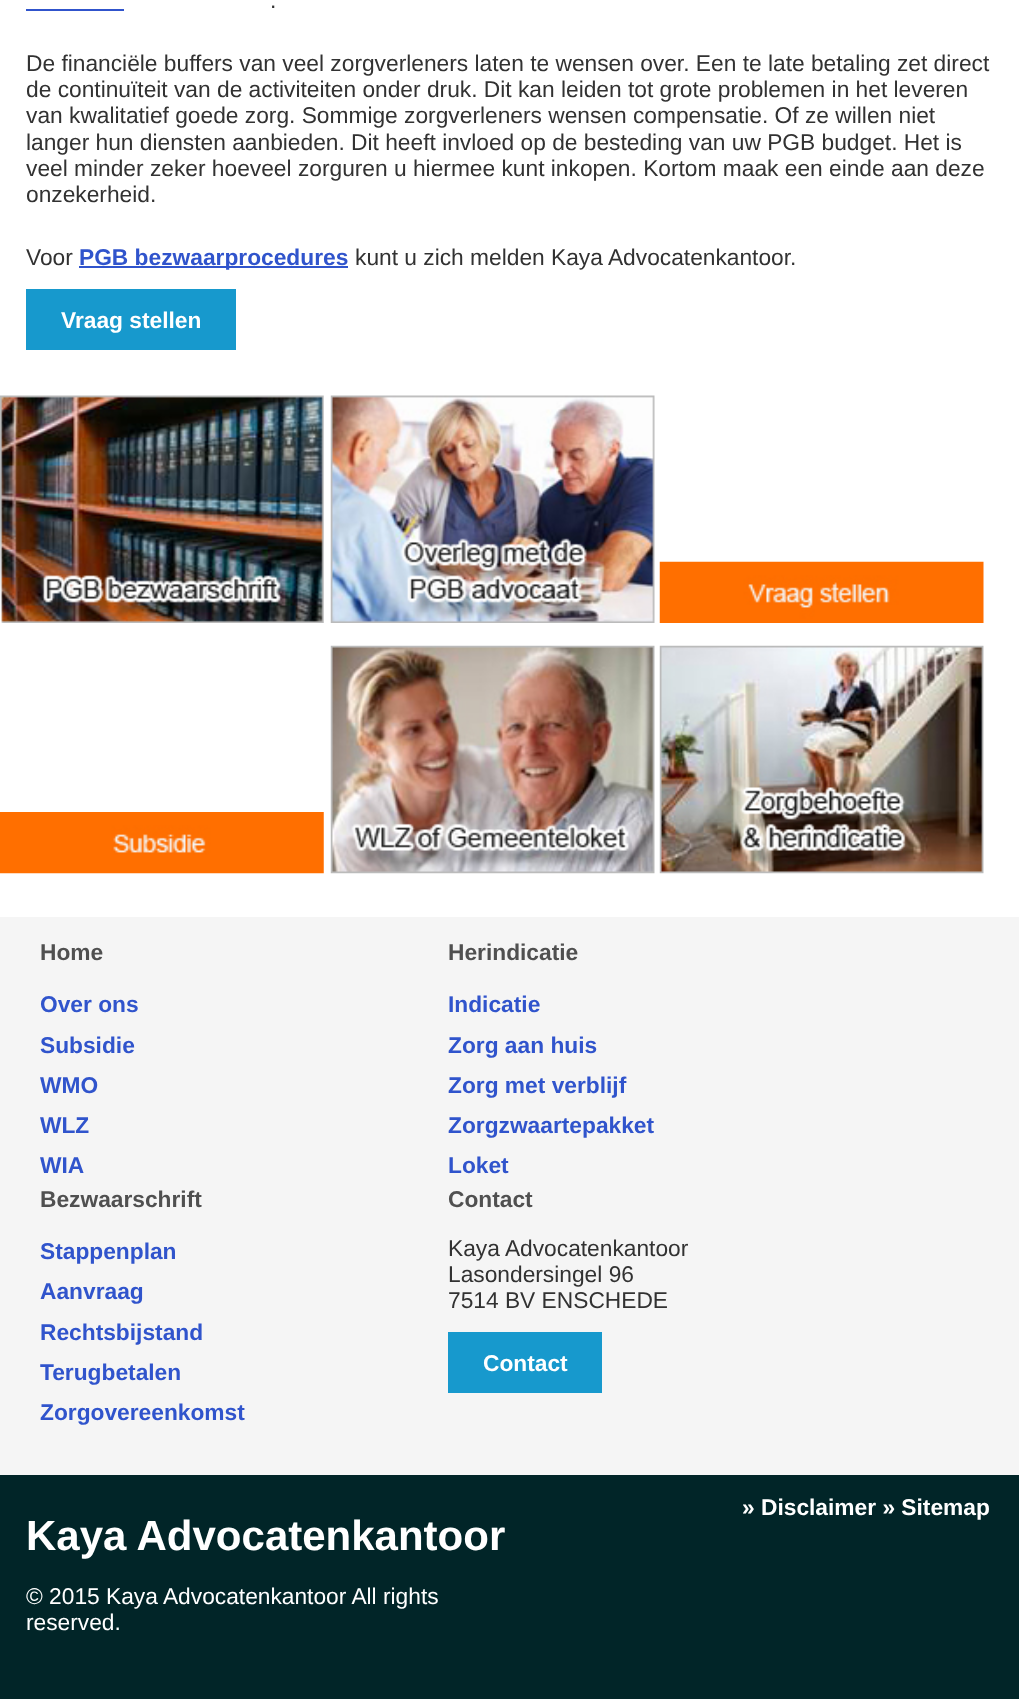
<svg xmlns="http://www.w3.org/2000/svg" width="1019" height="1699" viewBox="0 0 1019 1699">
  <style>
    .t1 { font: 22.75px Liberation Sans; fill: #323232; }
    .t2 { font: bold 22.75px Liberation Sans; fill: #3054cc; }
    .t3 { font: bold 22.75px Liberation Sans; fill: #fff; }
    .t4 { font: bold 22.75px Liberation Sans; fill: #505050; }
    .t5 { font: bold 42px Liberation Sans; fill: #fff; }
    .t6 { font: 22.75px Liberation Sans; fill: #fff; }
  </style>
  <rect width="100%" height="100%" fill="#fff"/>
  <text x="270" y="8" class="t1">.</text>
  <rect x="26" y="9" width="98" height="2" fill="#3054cc"/>
  <text x="26" y="71" class="t1">De financiële buffers van veel zorgverleners laten te wensen over. Een te late betaling zet direct</text>
  <text x="26" y="97" class="t1">de continuïteit van de activiteiten onder druk. Dit kan leiden tot grote problemen in het leveren</text>
  <text x="26" y="123" class="t1">van kwalitatief goede zorg. Sommige zorgverleners wensen compensatie. Of ze willen niet</text>
  <text x="26" y="150" class="t1">langer hun diensten aanbieden. Dit heeft invloed op de besteding van uw PGB budget. Het is</text>
  <text x="26" y="176" class="t1">veel minder zeker hoeveel zorguren u hiermee kunt inkopen. Kortom maak een einde aan deze</text>
  <text x="26" y="202" class="t1">onzekerheid.</text>
  <text x="26" y="265" class="t1">Voor</text>
  <rect x="79" y="266" width="269" height="2" fill="#3054cc"/>
  <text x="79" y="265" class="t2">PGB bezwaarprocedures</text>
  <text x="355" y="265" class="t1">kunt u zich melden Kaya Advocatenkantoor.</text>
  <rect x="26" y="289" width="210" height="61" fill="#1799cd"/>
  <text x="61" y="328" class="t3">Vraag stellen</text>
  <image x="0" y="395" width="324" height="228" href="images/1.png"/>
  <image x="330" y="395" width="325" height="228" href="images/2.png"/>
  <image x="659" y="561" width="325" height="62" href="images/3.png"/>
  <image x="0" y="812" width="324" height="62" href="images/4.png"/>
  <image x="330" y="645" width="325" height="229" href="images/5.png"/>
  <image x="659" y="645" width="325" height="229" href="images/6.png"/>
  <rect x="0" y="917" width="1019" height="558" fill="#f5f5f5"/>
  <text x="40" y="960" class="t4">Home</text>
  <text x="40" y="1012" class="t2">Over ons</text>
  <text x="40" y="1053" class="t2">Subsidie</text>
  <text x="40" y="1093" class="t2">WMO</text>
  <text x="40" y="1133" class="t2">WLZ</text>
  <text x="40" y="1173" class="t2">WIA</text>
  <text x="448" y="960" class="t4">Herindicatie</text>
  <text x="448" y="1012" class="t2">Indicatie</text>
  <text x="448" y="1053" class="t2">Zorg aan huis</text>
  <text x="448" y="1093" class="t2">Zorg met verblijf</text>
  <text x="448" y="1133" class="t2">Zorgzwaartepakket</text>
  <text x="448" y="1173" class="t2">Loket</text>
  <text x="40" y="1207" class="t4">Bezwaarschrift</text>
  <text x="40" y="1259" class="t2">Stappenplan</text>
  <text x="40" y="1299" class="t2">Aanvraag</text>
  <text x="40" y="1340" class="t2">Rechtsbijstand</text>
  <text x="40" y="1380" class="t2">Terugbetalen</text>
  <text x="40" y="1420" class="t2">Zorgovereenkomst</text>
  <text x="448" y="1207" class="t4">Contact</text>
  <text x="448" y="1256" class="t1">Kaya Advocatenkantoor</text>
  <text x="448" y="1282" class="t1">Lasondersingel 96</text>
  <text x="448" y="1308" class="t1">7514 BV ENSCHEDE</text>
  <rect x="448" y="1332" width="154" height="61" fill="#1799cd"/>
  <text x="483" y="1371" class="t3">Contact</text>
  <rect x="0" y="1475" width="1019" height="224" fill="#012528"/>
  <text x="742" y="1515" class="t3">» Disclaimer » Sitemap</text>
  <text x="26" y="1550" class="t5">Kaya Advocatenkantoor</text>
  <text x="26" y="1604" class="t6">© 2015 Kaya Advocatenkantoor All rights</text>
  <text x="26" y="1630" class="t6">reserved.</text>
</svg>
